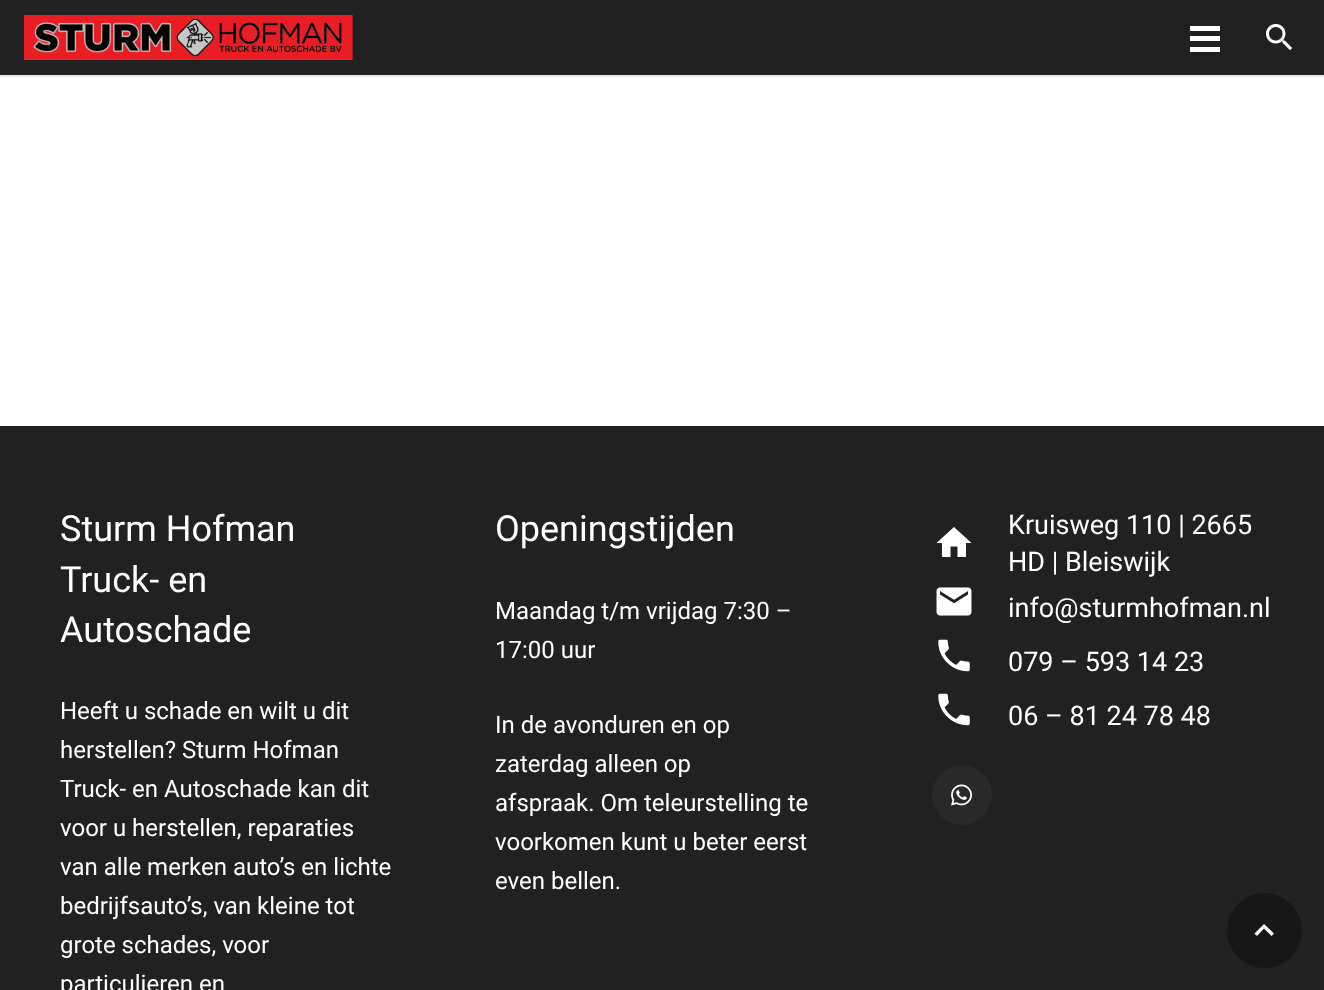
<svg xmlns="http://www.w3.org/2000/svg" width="1324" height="990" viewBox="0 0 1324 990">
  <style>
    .t1 { font: 36px Roboto; fill: #fff; }
    .t2 { font: 24px Roboto; fill: #fff; }
    .t3 { font: 27px Roboto; fill: #fff; }
  </style>
  <rect width="100%" height="100%" fill="#fff"/>
  <path d="M0 75V77H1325V2H1324V75Z" fill="#ebebeb"/>
  <rect x="0" y="0" width="1324" height="75" fill="#212121"/>
  <image x="24" y="15" width="329" height="45" href="images/1.png"/>
  <rect x="1190" y="36" width="30" height="5" fill="#fff"/>
  <rect x="1190" y="26" width="30" height="5" fill="#fff"/>
  <rect x="1190" y="47" width="30" height="5" fill="#fff"/>
  <image x="1266" y="24" width="27" height="27" href="images/2.png"/>
  <rect x="0" y="426" width="1324" height="564" fill="#212121"/>
  <text x="60" y="541" class="t1">Sturm Hofman</text>
  <text x="60" y="592" class="t1">Truck- en</text>
  <text x="60" y="642" class="t1">Autoschade</text>
  <text x="60" y="719" class="t2">Heeft u schade en wilt u dit</text>
  <text x="60" y="758" class="t2">herstellen? Sturm Hofman</text>
  <text x="60" y="797" class="t2">Truck- en Autoschade kan dit</text>
  <text x="60" y="836" class="t2">voor u herstellen, reparaties</text>
  <text x="60" y="875" class="t2">van alle merken auto’s en lichte</text>
  <text x="60" y="914" class="t2">bedrijfsauto’s, van kleine tot</text>
  <text x="60" y="953" class="t2">grote schades, voor</text>
  <text x="60" y="992" class="t2">particulieren en</text>
  <text x="495" y="541" class="t1">Openingstijden</text>
  <text x="495" y="619" class="t2">Maandag t/m vrijdag 7:30 –</text>
  <text x="495" y="658" class="t2">17:00 uur</text>
  <text x="495" y="733" class="t2">In de avonduren en op</text>
  <text x="495" y="772" class="t2">zaterdag alleen op</text>
  <text x="495" y="811" class="t2">afspraak. Om teleurstelling te</text>
  <text x="495" y="850" class="t2">voorkomen kunt u beter eerst</text>
  <text x="495" y="889" class="t2">even bellen.</text>
  <path d="M950.5 557H942V543H936.5L954 527L971.5 543H966V557H957.5V546.5H950.5Z" fill="#fff"/>
  <text x="1008" y="534" class="t3">Kruisweg 110 | 2665</text>
  <text x="1008" y="571" class="t3">HD | Bleiswijk</text>
  <image x="936" y="587" width="36" height="29" href="images/3.png"/>
  <text x="1008" y="617" class="t3">info@sturmhofman.nl</text>
  <image x="938" y="639" width="32" height="33" href="images/4.png"/>
  <text x="1008" y="671" class="t3">079 – 593 14 23</text>
  <image x="938" y="693" width="32" height="33" href="images/4.png"/>
  <text x="1008" y="725" class="t3">06 – 81 24 78 48</text>
  <circle cx="962" cy="795" r="30" fill="#292929"/>
  <image x="951" y="784" width="21" height="22" href="images/5.png"/>
  <circle cx="1264.5" cy="930.5" r="37.5" fill="#171717"/>
  <path d="M1257 936L1254.5 933.5L1264 924L1274 933.5L1271.5 936L1264 928.5Z" fill="#fff"/>
</svg>
